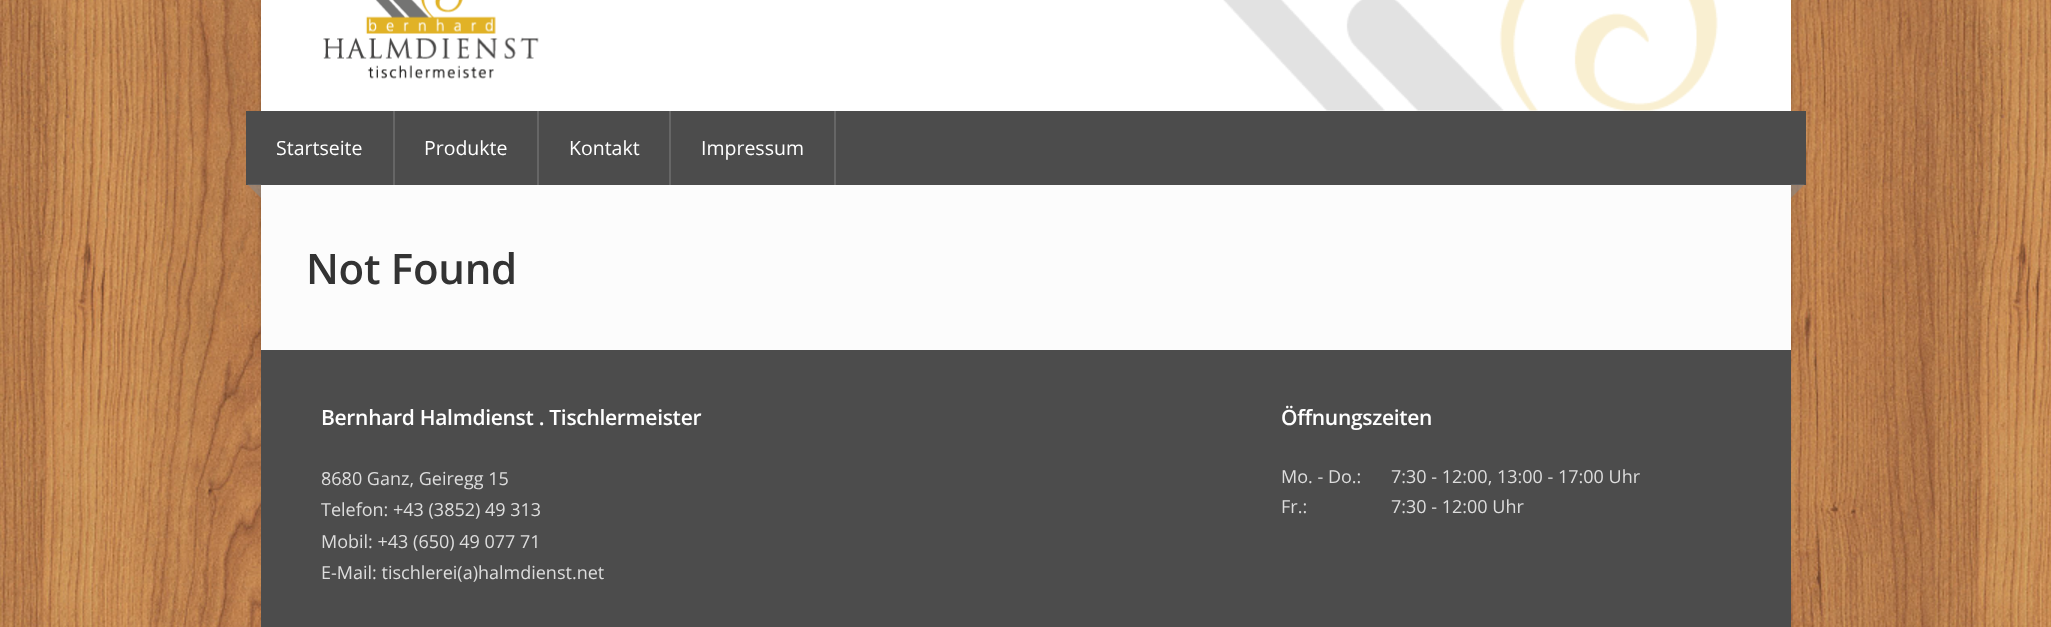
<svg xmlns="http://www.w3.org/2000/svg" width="2051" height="627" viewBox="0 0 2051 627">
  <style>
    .t1 { font: 19.5px Open Sans; fill: #fff; }
    .t2 { font: 600 42px Open Sans; letter-spacing: -0.3px; fill: #333; }
    .t3 { font: 600 21px Open Sans; letter-spacing: -0.3px; fill: #fff; }
    .t4 { font: 18px Open Sans; fill: #ddd; }
  </style>
  <rect width="100%" height="100%" fill="#fff"/>
  <image x="0" y="0" width="2051" height="627" href="images/1.png"/>
  <rect x="261" y="-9" width="1530" height="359" fill="#00000033" filter="blur(3px)"/>
  <rect x="261" y="0" width="1530" height="111" fill="#fff"/>
  <image x="1223" y="0" width="495" height="111" href="images/2.png"/>
  <image x="323" y="0" width="216" height="79" href="images/3.png"/>
  <rect x="246" y="111" width="1560" height="74" fill="#4c4c4c"/>
  <rect x="393" y="111" width="2" height="74" fill="#666"/>
  <text x="276" y="155" class="t1">Startseite</text>
  <rect x="537" y="111" width="2" height="74" fill="#666"/>
  <text x="424" y="155" class="t1">Produkte</text>
  <rect x="669" y="111" width="2" height="74" fill="#666"/>
  <text x="569" y="155" class="t1">Kontakt</text>
  <rect x="834" y="111" width="2" height="74" fill="#666"/>
  <text x="701" y="155" class="t1">Impressum</text>
  <path d="M261 184.5V198L247.5 184.5Z" fill="#88888894"/>
  <path d="M1791 184.5H1804.5L1791 198Z" fill="#88888894"/>
  <rect x="261" y="185" width="1530" height="165" fill="#fcfcfc"/>
  <text x="306" y="284" class="t2">Not Found</text>
  <rect x="261" y="350" width="1530" height="277" fill="#4c4c4c"/>
  <text x="321" y="425" class="t3">Bernhard Halmdienst . Tischlermeister</text>
  <text x="321" y="485" class="t4">8680 Ganz, Geiregg 15</text>
  <text x="321" y="516" class="t4">Telefon: +43 (3852) 49 313</text>
  <text x="321" y="548" class="t4">Mobil: +43 (650) 49 077 71</text>
  <text x="321" y="579" class="t4">E-Mail: tischlerei(a)halmdienst.net</text>
  <text x="1281" y="425" class="t3">Öffnungszeiten</text>
  <text x="1281" y="483" class="t4">Mo. - Do.:</text>
  <text x="1391" y="483" class="t4">7:30 - 12:00, 13:00 - 17:00 Uhr</text>
  <text x="1281" y="513" class="t4">Fr.:</text>
  <text x="1391" y="513" class="t4">7:30 - 12:00 Uhr</text>
</svg>
